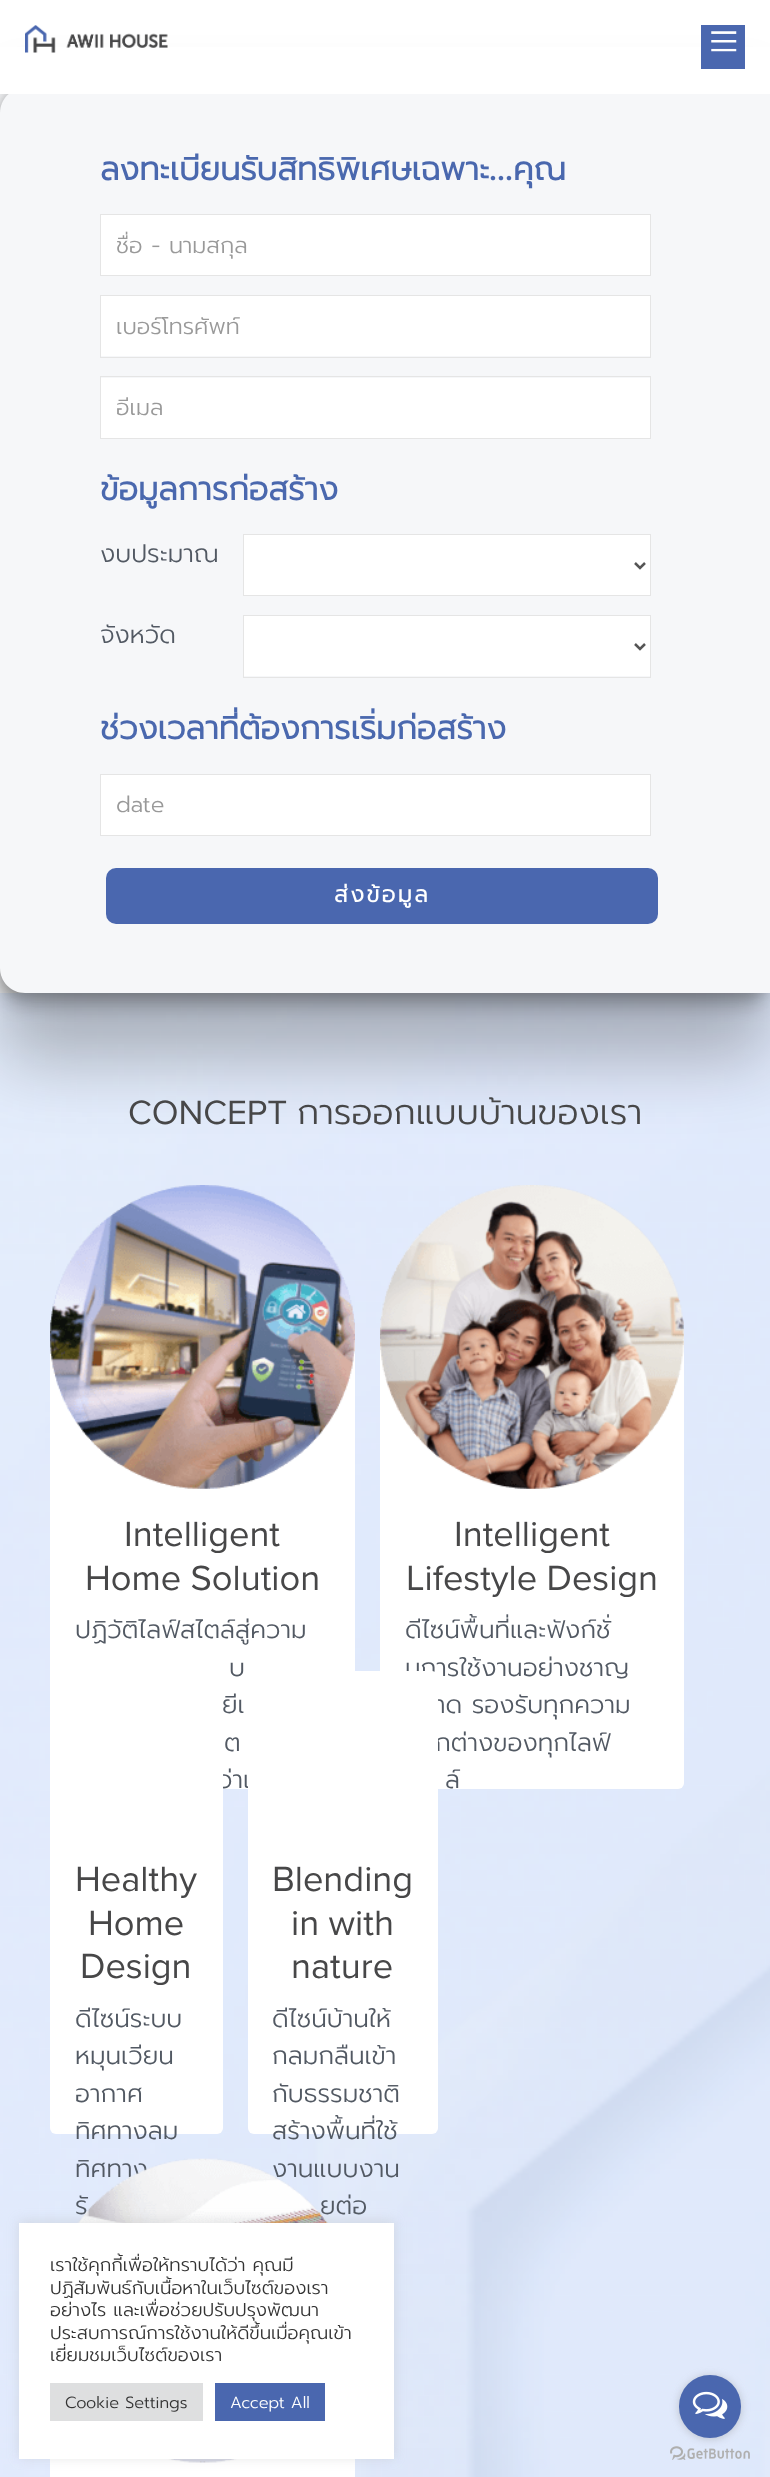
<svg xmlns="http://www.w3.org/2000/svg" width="770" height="2477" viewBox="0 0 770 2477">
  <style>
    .t1 { font: bold 32.5px Prompt; fill: #4a68ae; }
    .t2 { font: 600 32.5px Proxima Nova; fill: #4a68ae; }
    .t3 { font: 300 22.5px Prompt; fill: #999; }
    .t4 { font: 300 25px Prompt; fill: #525963; }
    .t5 { font: bold 22.5px Prompt; letter-spacing: 2.5px; fill: #fff; }
    .t6 { font: 35px Proxima Nova; fill: #474748; }
    .t7 { font: 300 35px Prompt; fill: #474748; }
    .t8 { font: 36.25px Proxima Nova; fill: #474748; }
    .t9 { font: 300 18.3px Prompt; fill: #333; }
    .t10 { font: 300 16.25px Prompt; fill: #333; }
    .t11 { font: 300 16.25px Prompt; fill: #fff; }
  </style>
  <defs>
    <clipPath id="clip1"><rect x="116" y="228" width="519" height="35"/></clipPath>
    <clipPath id="clip2"><rect x="116" y="390" width="519" height="35"/></clipPath>
  </defs>
  <rect width="100%" height="100%" fill="#fff"/>
  <image x="0" y="993" width="770" height="1484" href="images/3.png"/>
  <rect x="0" y="94" width="25" height="899" fill="#f6f7f9"/>
  <rect x="0" y="84" width="770" height="905" rx="25" fill="#00000017" filter="blur(3px)"/>
  <rect x="0" y="103" width="770" height="905" rx="25" fill="#0000002b" filter="blur(8px)"/>
  <rect x="0" y="93" width="770" height="905" rx="25" fill="#0000001f" filter="blur(4px)"/>
  <rect x="0" y="73" width="770" height="905" rx="25" fill="#0000001f" filter="blur(19px)"/>
  <rect x="0" y="155" width="770" height="905" rx="25" fill="#00000040" filter="blur(34.5px)"/>
  <path d="M25 88H770V993H25C11 993 0 982 0 968V113C0 99 11 88 25 88Z" fill="#f6f7f9"/>
  <rect x="0" y="47" width="770" height="47" fill="#fff"/>
  <image x="25" y="25" width="143" height="28" href="images/1.png"/>
  <rect x="701" y="25" width="44" height="44" fill="#4a67af"/>
  <image x="711" y="31" width="26" height="21" href="images/2.png"/>
  <text x="100" y="180" class="t1">ลงทะเบียนรับสิทธิพิเศษเฉพาะ</text>
  <text x="489" y="180" class="t2">...</text>
  <text x="513" y="180" class="t1">คุณ</text>
  <rect x="100.5" y="214.5" width="550" height="61" fill="#fff" stroke="#e5e5e5"/>
  <g clip-path="url(#clip1)">
    <text x="116" y="253" class="t3">ชื่อ - นามสกุล</text>
  </g>
  <rect x="101" y="296" width="549" height="60" fill="#fff"/>
  <rect x="100.5" y="295.5" width="550" height="62" fill="none" stroke="#e5e5e5"/>
  <text x="116" y="334" class="t3">เบอร์โทรศัพท์</text>
  <rect x="101" y="378" width="549" height="60" fill="#fff"/>
  <rect x="100.5" y="376.5" width="550" height="62" fill="none" stroke="#e5e5e5"/>
  <g clip-path="url(#clip2)">
    <text x="116" y="415" class="t3">อีเมล</text>
  </g>
  <text x="100" y="500" class="t1">ข้อมูลการก่อสร้าง</text>
  <text x="100" y="562" class="t4">งบประมาณ</text>
  <rect x="243.5" y="534.5" width="407" height="61" fill="#fff" stroke="#e5e5e5"/>
  <path d="M635 563L640 568L645 563" fill="none" stroke="#555" stroke-width="2.5"/>
  <text x="100" y="643" class="t4">จังหวัด</text>
  <rect x="244" y="616" width="406" height="60" fill="#fff"/>
  <rect x="243.5" y="615.5" width="407" height="62" fill="none" stroke="#e5e5e5"/>
  <path d="M635 644L640 649L645 644" fill="none" stroke="#555" stroke-width="2.5"/>
  <text x="100" y="739" class="t1">ช่วงเวลาที่ต้องการเริ่มก่อสร้าง</text>
  <rect x="100.5" y="774.5" width="550" height="61" fill="#fff" stroke="#e5e5e5"/>
  <text x="116" y="812" class="t3">date</text>
  <rect x="106" y="868" width="552" height="56" rx="10" fill="#4a67af"/>
  <text x="334" y="902" class="t5">ส่งข้อมูล</text>
  <text x="128" y="1124" class="t6">CONCEPT</text>
  <text x="297" y="1124" class="t7">การออกแบบบ้านของเรา</text>
  <rect x="50" y="1326" width="305" height="463" rx="6" fill="#fff"/>
  <image x="50" y="1185" width="305" height="304" href="images/4.png"/>
  <text x="124" y="1546" class="t8">Intelligent</text>
  <text x="85" y="1590" class="t8">Home Solution</text>
  <text x="75" y="1638" class="t4">ปฏิวัติไลฟ์สไตล์สู่ความ</text>
  <text x="229" y="1676" class="t4">บ</text>
  <text x="222" y="1713" class="t4">ยีเ</text>
  <text x="224" y="1751" class="t4">ิต</text>
  <text x="218" y="1788" class="t4">ว่าเ</text>
  <rect x="380" y="1326" width="304" height="463" rx="6" fill="#fff"/>
  <image x="380" y="1185" width="304" height="304" href="images/5.png"/>
  <text x="454" y="1546" class="t8">Intelligent</text>
  <text x="406" y="1590" class="t8">Lifestyle Design</text>
  <text x="405" y="1638" class="t4">ดีไซน์พื้นที่และฟังก์ชั่</text>
  <text x="405" y="1676" class="t4">นการใช้งานอย่างชาญ</text>
  <text x="435" y="1713" class="t4">าด รองรับทุกความ</text>
  <text x="435" y="1751" class="t4">กต่างของทุกไลฟ์</text>
  <text x="445" y="1788" class="t4">ล์</text>
  <rect x="50" y="1671" width="173" height="463" rx="6" fill="#fff"/>
  <text x="75" y="1891" class="t8">Healthy</text>
  <text x="88" y="1935" class="t8">Home</text>
  <text x="80" y="1978" class="t8">Design</text>
  <text x="75" y="2027" class="t4">ดีไซน์ระบบ</text>
  <text x="75" y="2064" class="t4">หมุนเวียน</text>
  <text x="75" y="2102" class="t4">อากาศ</text>
  <text x="75" y="2139" class="t4">ทิศทางลม</text>
  <text x="75" y="2177" class="t4">ทิศทาง</text>
  <text x="75" y="2214" class="t4">รั</text>
  <rect x="248" y="1671" width="190" height="463" rx="6" fill="#fff"/>
  <text x="272" y="1891" class="t8">Blending</text>
  <text x="291" y="1935" class="t8">in with</text>
  <text x="291" y="1978" class="t8">nature</text>
  <text x="272" y="2027" class="t4">ดีไซน์บ้านให้</text>
  <text x="272" y="2064" class="t4">กลมกลืนเข้า</text>
  <text x="272" y="2102" class="t4">กับธรรมชาติ</text>
  <text x="272" y="2139" class="t4">สร้างพื้นที่ใช้</text>
  <text x="272" y="2177" class="t4">งานแบบงาน</text>
  <text x="320" y="2214" class="t4">ยต่อ</text>
  <rect x="50" y="2459" width="305" height="18" fill="#fff"/>
  <image x="77" y="2158" width="251" height="305" href="images/6.png"/>
  <rect x="19" y="2221" width="375" height="237" fill="#acabab4d" filter="blur(6px)"/>
  <rect x="19" y="2223" width="375" height="236" fill="#fff"/>
  <text x="50" y="2271" class="t9">เราใช้คุกกี้เพื่อให้ทราบได้ว่า คุณมี</text>
  <text x="50" y="2294" class="t9">ปฏิสัมพันธ์กับเนื้อหาในเว็บไซต์ของเรา</text>
  <text x="50" y="2316" class="t9">อย่างไร และเพื่อช่วยปรับปรุงพัฒนา</text>
  <text x="50" y="2339" class="t9">ประสบการณ์การใช้งานให้ดีขึ้นเมื่อคุณเข้า</text>
  <text x="50" y="2361" class="t9">เยี่ยมชมเว็บไซต์ของเรา</text>
  <rect x="50" y="2383" width="153" height="38" fill="#dedfe0"/>
  <text x="65" y="2408" class="t10">Cookie Settings</text>
  <rect x="215" y="2383" width="110" height="38" fill="#4a67af"/>
  <text x="230" y="2408" class="t11">Accept All</text>
  <image x="670" y="2446" width="80" height="14" href="images/8.png"/>
  <rect x="679" y="2376" width="62" height="63" rx="31" fill="#88888866" filter="blur(4.5px)"/>
  <rect x="679" y="2375" width="62" height="63" rx="31" fill="#4a67af"/>
  <image x="692" y="2391" width="36" height="28" href="images/7.png"/>
</svg>
